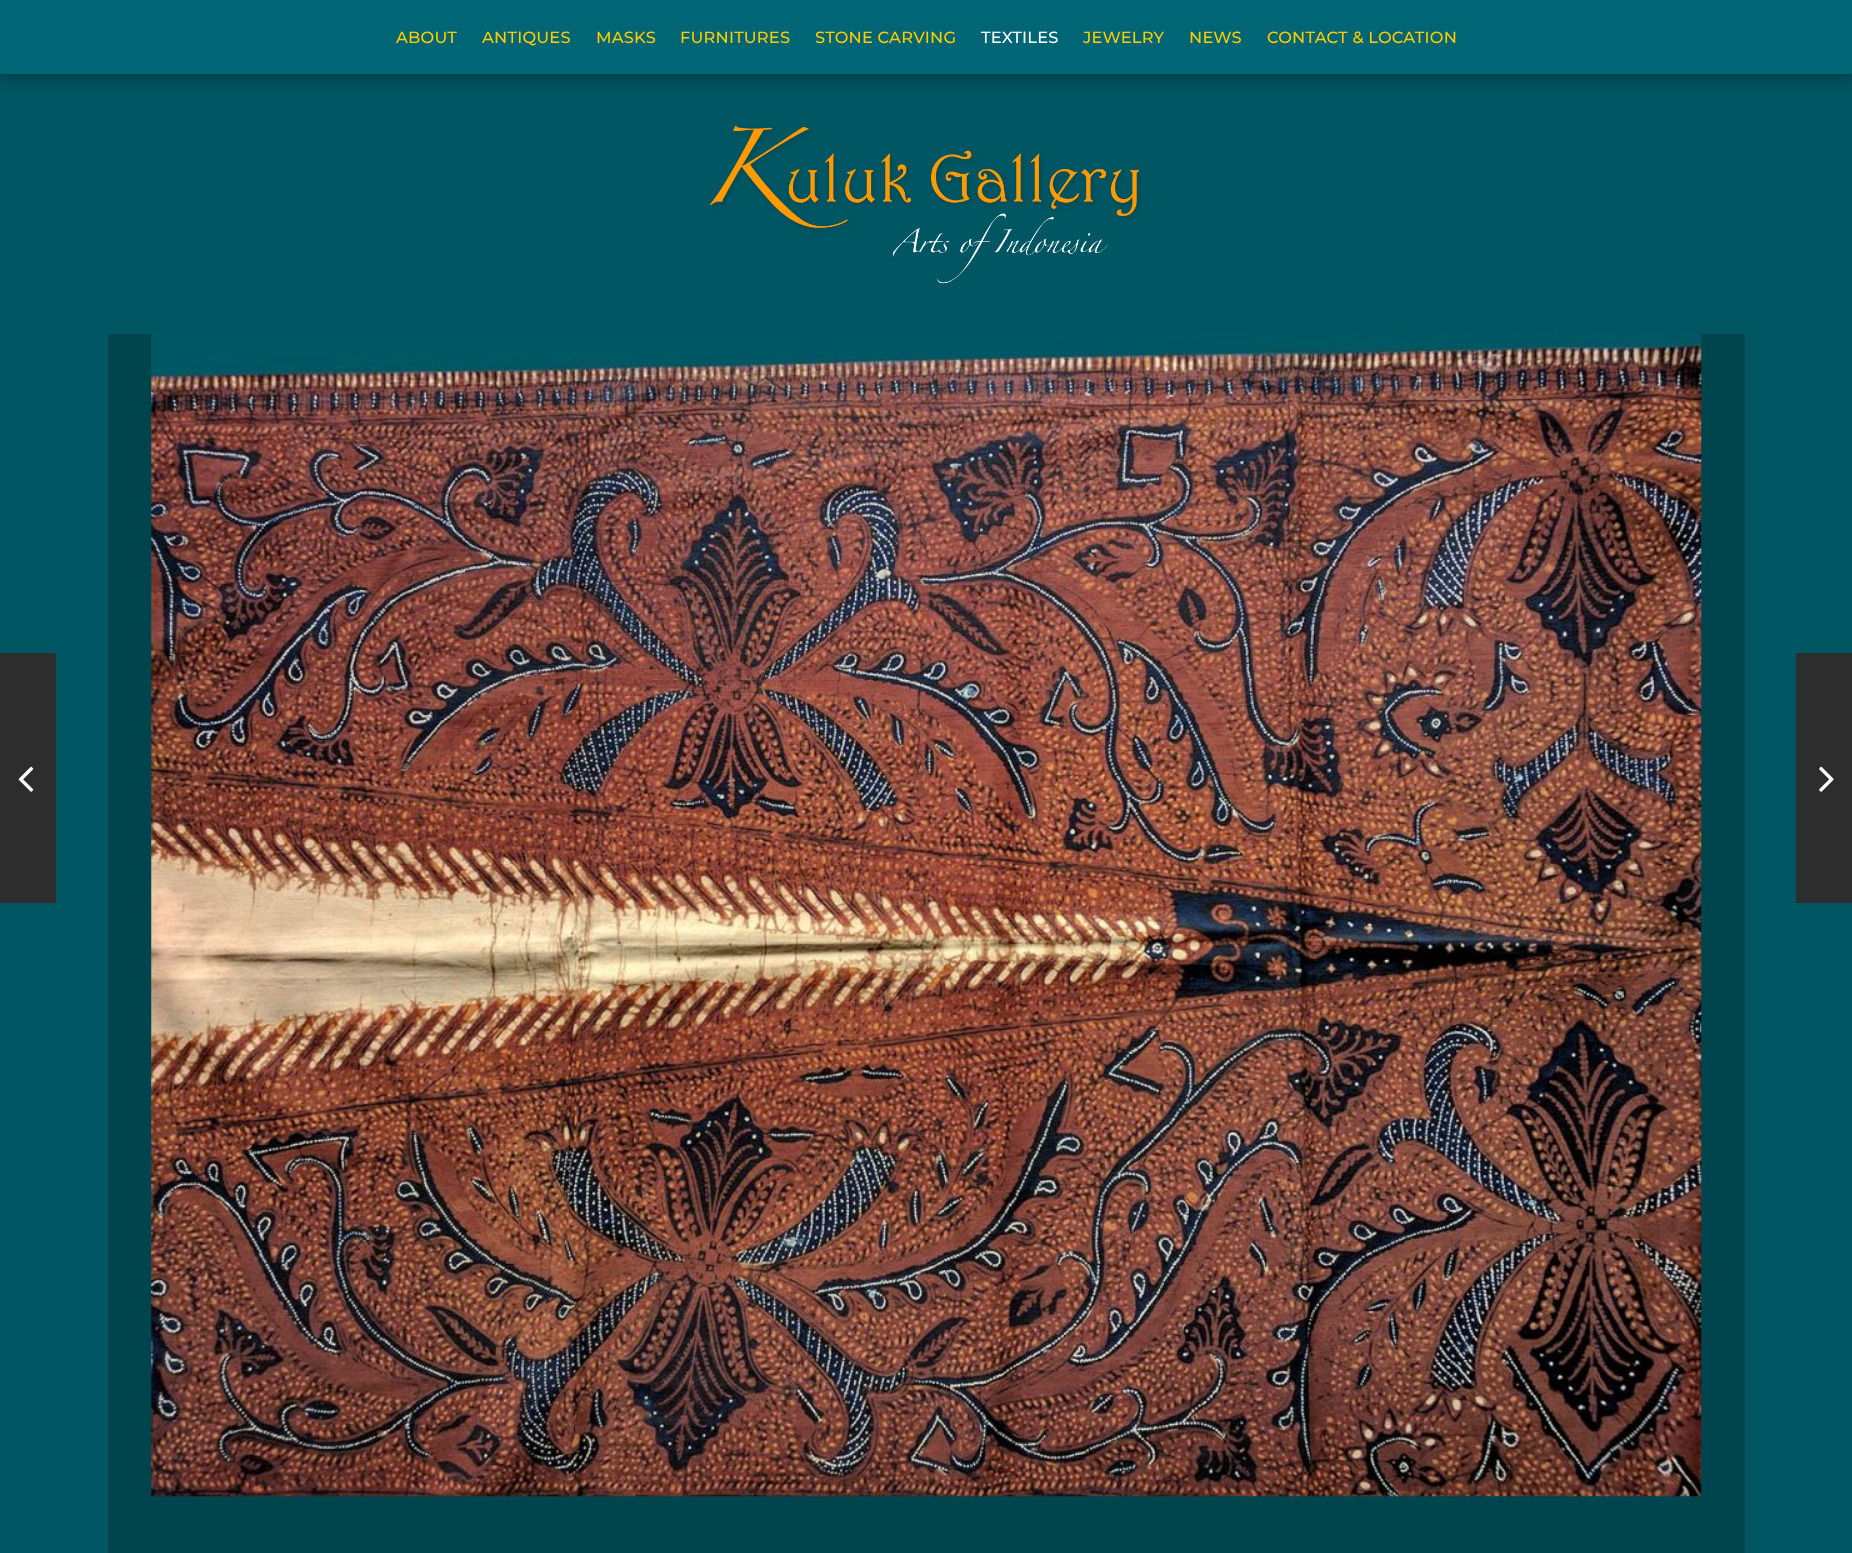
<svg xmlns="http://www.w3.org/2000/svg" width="1852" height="1553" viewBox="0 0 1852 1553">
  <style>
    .t1 { font: 500 16.25px Montserrat; letter-spacing: 0.2px; fill: #fc0; }
    .t2 { font: 500 16.25px Montserrat; letter-spacing: 0.2px; fill: #fff; }
  </style>
  <defs>
    <clipPath id="clip1"><path d="M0 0H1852V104H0ZM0 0H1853V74H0Z" clip-rule="evenodd"/></clipPath>
  </defs>
  <rect width="100%" height="100%" fill="#005663"/>
  <g clip-path="url(#clip1)">
    <rect x="0" y="0" width="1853" height="74" fill="#00000080" filter="blur(9.5px)"/>
  </g>
  <rect x="0" y="0" width="1852" height="74" fill="#006776f2"/>
  <text x="396" y="43" class="t1">ABOUT</text>
  <text x="482" y="43" class="t1">ANTIQUES</text>
  <text x="596" y="43" class="t1">MASKS</text>
  <text x="680" y="43" class="t1">FURNITURES</text>
  <text x="815" y="43" class="t1">STONE CARVING</text>
  <text x="981" y="43" class="t2">TEXTILES</text>
  <text x="1083" y="43" class="t1">JEWELRY</text>
  <text x="1189" y="43" class="t1">NEWS</text>
  <text x="1267" y="43" class="t1">CONTACT &amp; LOCATION</text>
  <image x="709" y="125" width="432" height="159" href="images/1.png"/>
  <rect x="108" y="334" width="1637" height="1219" fill="#00454e"/>
  <image x="151" y="334" width="1551" height="1163" href="images/2.png"/>
  <rect x="0" y="653" width="56" height="250" fill="#2d2d2d"/>
  <image x="18" y="766" width="16" height="26" href="images/3.png"/>
  <rect x="1796" y="653" width="56" height="250" fill="#2d2d2d"/>
  <image x="1819" y="766" width="15" height="26" href="images/4.png"/>
</svg>
